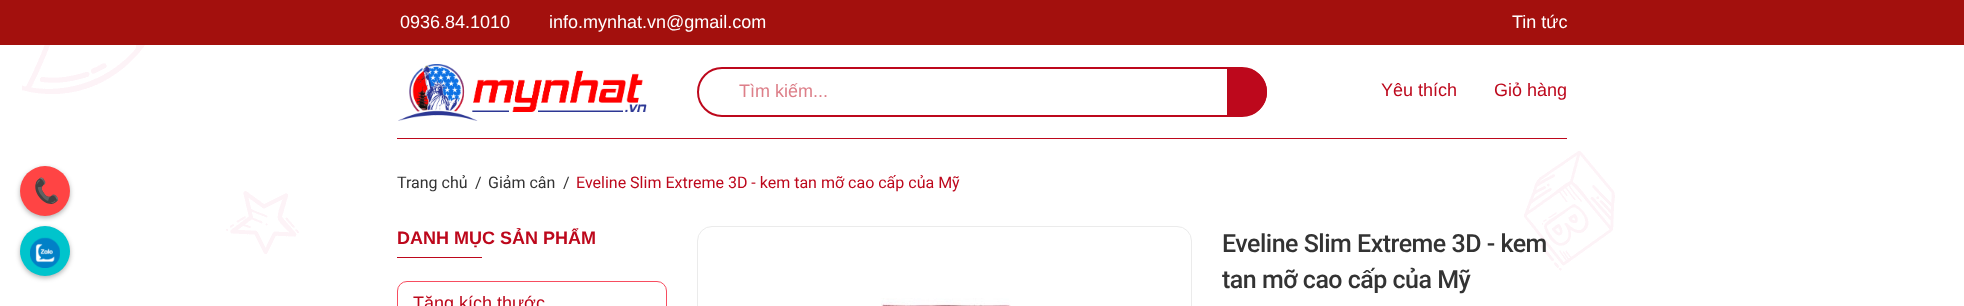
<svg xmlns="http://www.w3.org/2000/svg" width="1964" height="306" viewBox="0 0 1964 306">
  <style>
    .t1 { font: italic 24px Noto Color Emoji; fill: #fff; }
    .t2 { font: 18px Liberation Sans; fill: #fff; }
    .t3 { font: 18px Liberation Sans; fill: #dd7f89; }
    .t4 { font: 18px Liberation Sans; fill: #bd081c; }
    .t5 { font: 16px Roboto; fill: #333; }
    .t6 { font: 16px Roboto; fill: #bd081c; }
    .t7 { font: bold 18px Liberation Sans; fill: #bd081c; }
    .t8 { font: 500 25px Roboto; letter-spacing: -0.5px; fill: #333; }
  </style>
  <rect width="100%" height="100%" fill="#fff"/>
  <image x="22" y="45" width="1593" height="226" href="images/2.png"/>
  <rect x="20" y="168" width="50" height="50" rx="25" fill="#0000004d" filter="blur(2.5px)"/>
  <circle cx="45" cy="191" r="25" fill="#f44"/>
  <text x="30" y="199" class="t1">📞</text>
  <rect x="20" y="228" width="50" height="50" rx="25" fill="#0000004d" filter="blur(2.5px)"/>
  <circle cx="45" cy="251" r="25" fill="#00c4cc"/>
  <image x="30" y="237" width="30" height="31" href="images/1.png"/>
  <rect x="0" y="0" width="1964" height="45" fill="#a3100d"/>
  <text x="400" y="28" class="t2">0936.84.1010</text>
  <text x="549" y="28" class="t2">info.mynhat.vn@gmail.com</text>
  <text x="1512" y="28" class="t2">Tin tức</text>
  <image x="398" y="64" width="249" height="57" href="images/3.png"/>
  <rect x="698" y="68" width="568" height="48" rx="24" fill="none" stroke="#bd081c" stroke-width="2"/>
  <text x="739" y="97" class="t3">Tìm kiếm...</text>
  <path d="M1227 68H1243C1256.5 68 1267 78.5 1267 92C1267 105.5 1256.5 116 1243 116H1227Z" fill="#bd081c"/>
  <text x="1381" y="96" class="t4">Yêu thích</text>
  <text x="1494" y="96" class="t4">Giỏ hàng</text>
  <rect x="397" y="138" width="1170" height="1" fill="#bd081c"/>
  <text x="397" y="188" class="t5">Trang chủ</text>
  <text x="475" y="188" class="t5">/</text>
  <text x="488" y="188" class="t5">Giảm cân</text>
  <text x="563" y="188" class="t5">/</text>
  <text x="576" y="188" class="t6">Eveline Slim Extreme 3D - kem tan mỡ cao cấp của Mỹ</text>
  <text x="397" y="244" class="t7">DANH MỤC SẢN PHẨM</text>
  <rect x="397" y="257" width="85" height="1" fill="#bd081c"/>
  <rect x="397.5" y="281.5" width="269" height="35" rx="9.5" fill="none" stroke="#f74d60"/>
  <text x="413" y="309" class="t4">Tăng kích thước</text>
  <rect x="697.5" y="226.5" width="494" height="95" rx="14.5" fill="none" stroke="#ebebeb"/>
  <image x="881" y="298" width="130" height="8" href="images/4.png"/>
  <text x="1222" y="252" class="t8">Eveline Slim Extreme 3D - kem</text>
  <text x="1222" y="288" class="t8">tan mỡ cao cấp của Mỹ</text>
</svg>
